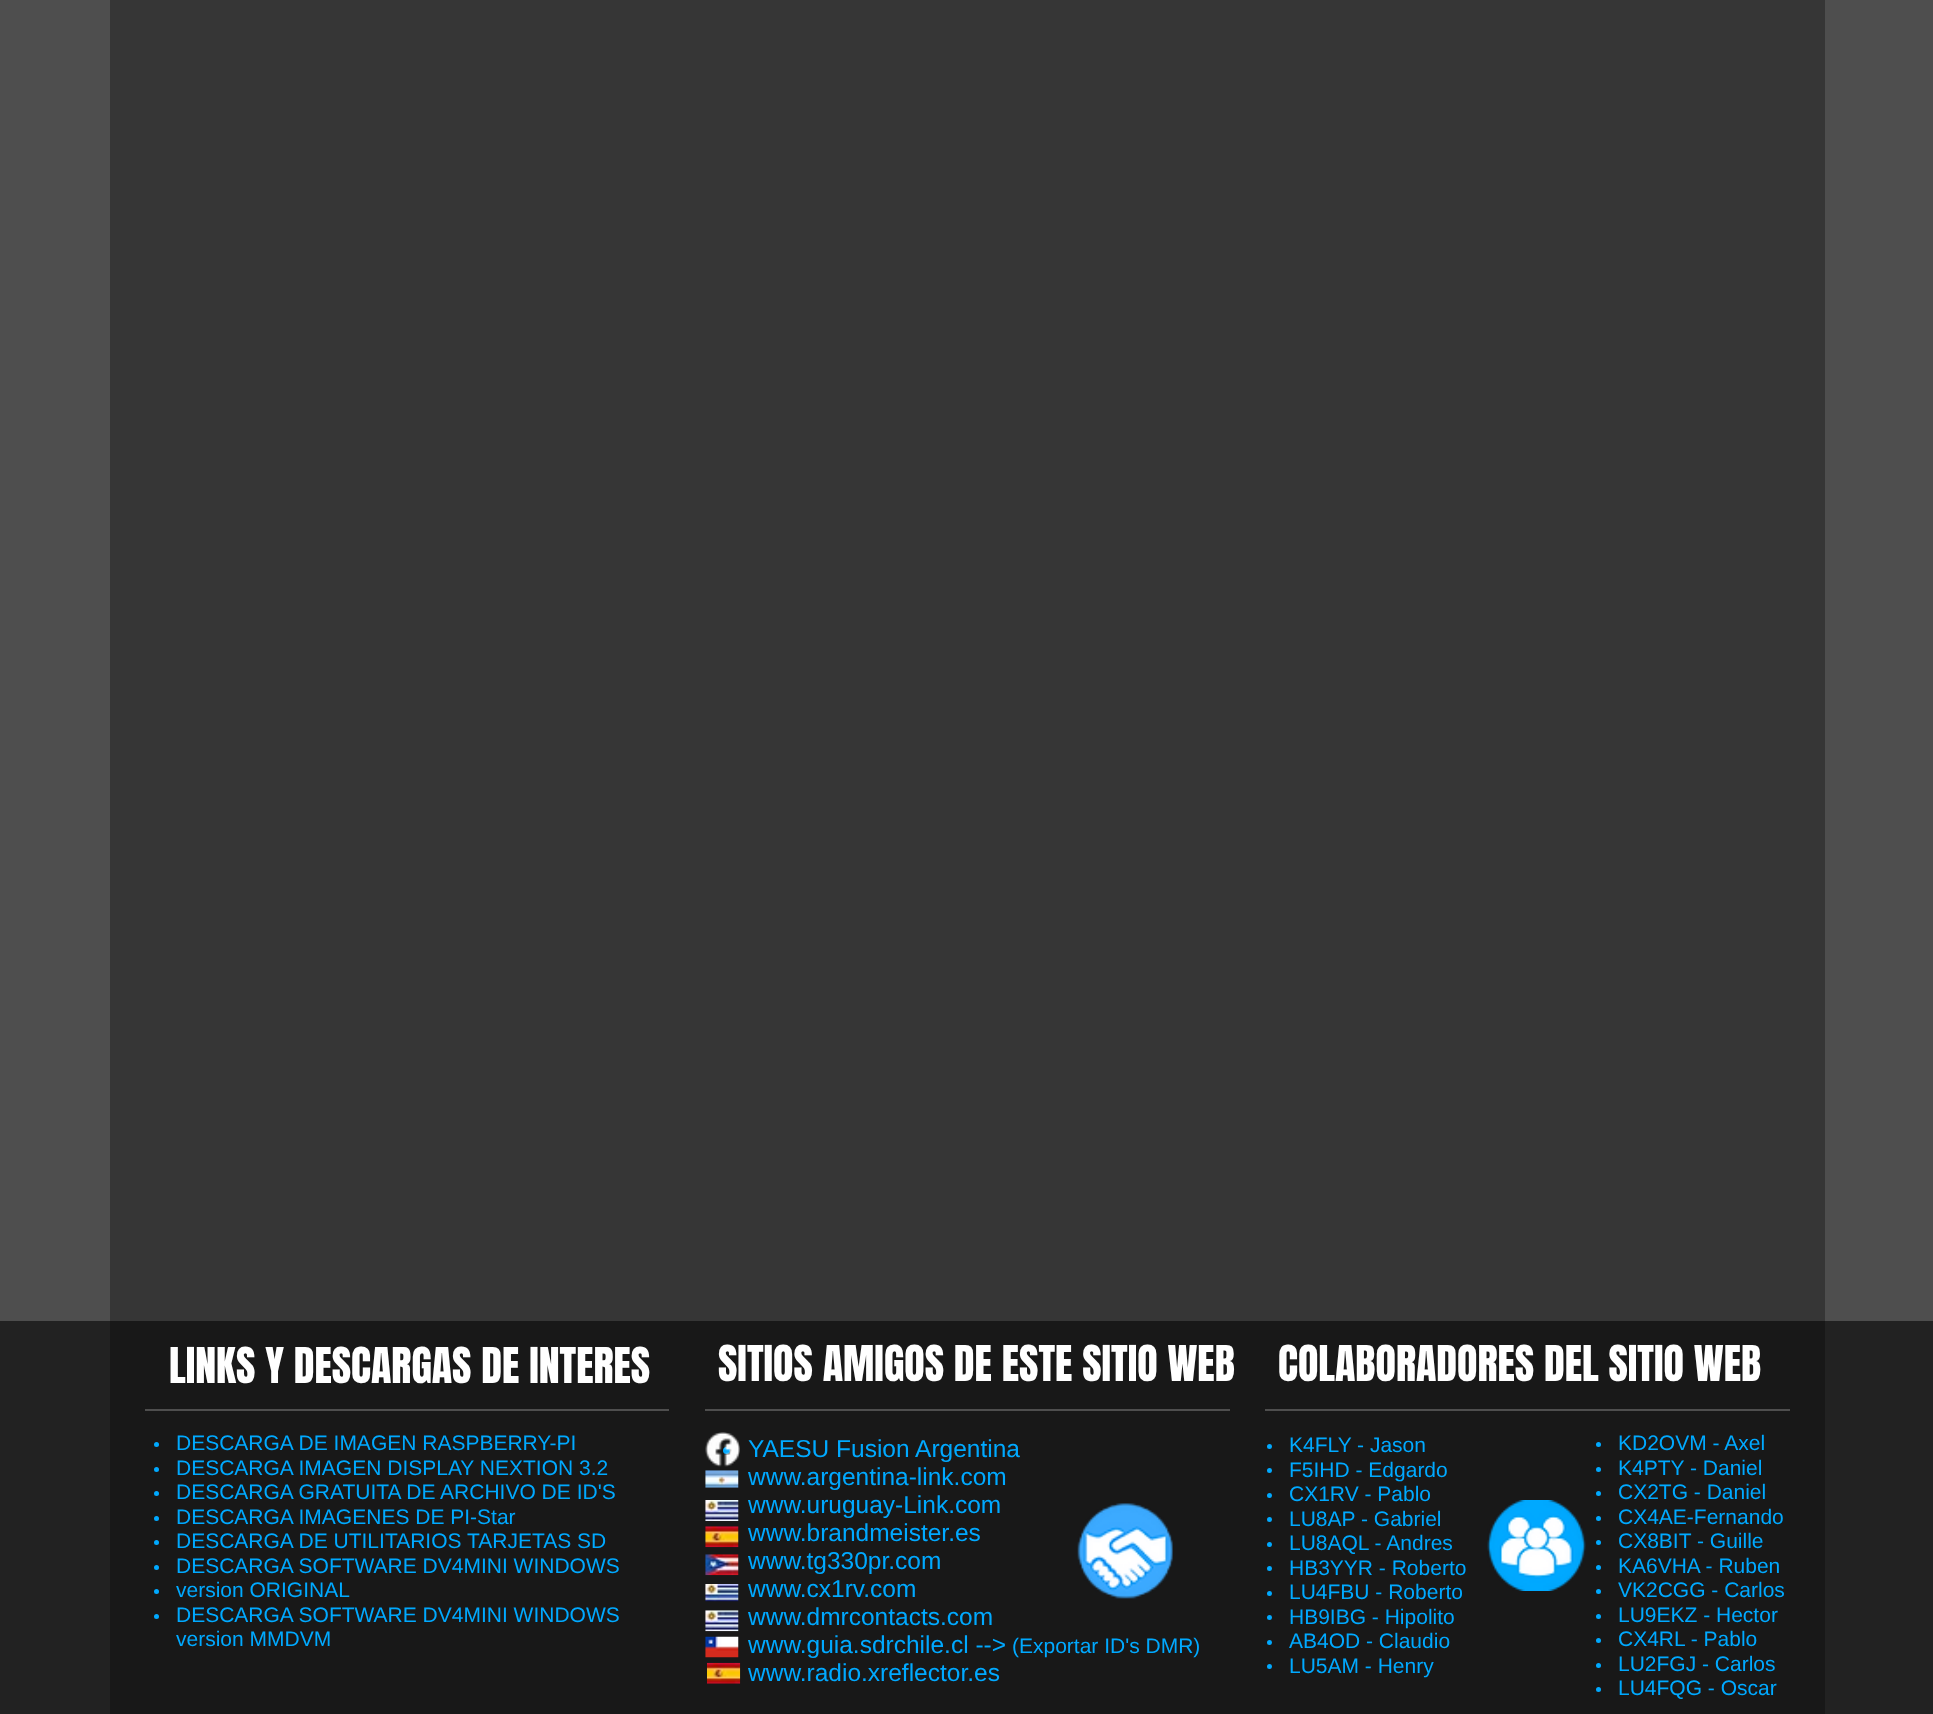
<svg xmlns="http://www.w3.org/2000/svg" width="1933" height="1714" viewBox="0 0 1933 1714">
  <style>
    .t1 { font: 42px Anton; fill: #fff; }
    .t2 { font: 21px Liberation Sans; fill: #00a9ff; }
    .t3 { font: 24.5px Liberation Sans; fill: #00a9ff; }
  </style>
  <rect width="100%" height="100%" fill="#4e4e4e"/>
  <rect x="0" y="1321" width="1933" height="393" fill="#222"/>
  <rect x="110" y="0" width="1715" height="1321" fill="#363636"/>
  <rect x="110" y="1321" width="1715" height="393" fill="#181818"/>
  <text x="169" y="1383" class="t1">LINKS Y DESCARGAS DE INTERES</text>
  <text x="718" y="1381" class="t1">SITIOS AMIGOS DE ESTE SITIO WEB</text>
  <text x="1278" y="1381" class="t1">COLABORADORES DEL SITIO WEB</text>
  <rect x="145" y="1409" width="524" height="2" fill="#4e4e4e"/>
  <rect x="705" y="1409" width="525" height="2" fill="#4e4e4e"/>
  <rect x="1265" y="1409" width="525" height="2" fill="#4e4e4e"/>
  <circle cx="156.5" cy="1444.5" r="2.5" fill="#00a9ff"/>
  <text x="176" y="1450" class="t2">DESCARGA DE IMAGEN RASPBERRY-PI</text>
  <circle cx="156.5" cy="1469.5" r="2.5" fill="#00a9ff"/>
  <text x="176" y="1475" class="t2">DESCARGA IMAGEN DISPLAY NEXTION 3.2</text>
  <circle cx="156.5" cy="1493.5" r="2.5" fill="#00a9ff"/>
  <text x="176" y="1499" class="t2">DESCARGA GRATUITA DE ARCHIVO DE ID'S</text>
  <circle cx="156.5" cy="1518.5" r="2.5" fill="#00a9ff"/>
  <text x="176" y="1524" class="t2">DESCARGA IMAGENES DE PI-Star</text>
  <circle cx="156.5" cy="1542.5" r="2.5" fill="#00a9ff"/>
  <text x="176" y="1548" class="t2">DESCARGA DE UTILITARIOS TARJETAS SD</text>
  <circle cx="156.5" cy="1567.5" r="2.5" fill="#00a9ff"/>
  <text x="176" y="1573" class="t2">DESCARGA SOFTWARE DV4MINI WINDOWS</text>
  <circle cx="156.5" cy="1591.5" r="2.5" fill="#00a9ff"/>
  <text x="176" y="1597" class="t2">version ORIGINAL</text>
  <circle cx="156.5" cy="1616.5" r="2.5" fill="#00a9ff"/>
  <text x="176" y="1622" class="t2">DESCARGA SOFTWARE DV4MINI WINDOWS</text>
  <text x="176" y="1646" class="t2">version MMDVM</text>
  <circle cx="726.5" cy="1450.5" r="3.5" fill="#00a9ff"/>
  <image x="705" y="1432" width="35" height="35" href="images/1.png"/>
  <text x="748" y="1457" class="t3">YAESU Fusion Argentina</text>
  <text x="748" y="1485" class="t3">www.argentina-link.com</text>
  <text x="748" y="1513" class="t3">www.uruguay-Link.com</text>
  <text x="748" y="1541" class="t3">www.brandmeister.es</text>
  <text x="748" y="1569" class="t3">www.tg330pr.com</text>
  <text x="748" y="1597" class="t3">www.cx1rv.com</text>
  <text x="748" y="1625" class="t3">www.dmrcontacts.com</text>
  <text x="748" y="1653" class="t3">www.guia.sdrchile.cl --&gt;</text>
  <text x="1012" y="1653" class="t2">(Exportar ID's DMR)</text>
  <text x="748" y="1681" class="t3">www.radio.xreflector.es</text>
  <circle cx="1269.5" cy="1446.5" r="2.5" fill="#00a9ff"/>
  <text x="1289" y="1452" class="t2">K4FLY - Jason</text>
  <circle cx="1269.5" cy="1470.5" r="2.5" fill="#00a9ff"/>
  <text x="1289" y="1477" class="t2">F5IHD - Edgardo</text>
  <circle cx="1269.5" cy="1495.5" r="2.5" fill="#00a9ff"/>
  <text x="1289" y="1501" class="t2">CX1RV - Pablo</text>
  <circle cx="1269.5" cy="1519.5" r="2.5" fill="#00a9ff"/>
  <text x="1289" y="1526" class="t2">LU8AP - Gabriel</text>
  <circle cx="1269.5" cy="1544.5" r="2.5" fill="#00a9ff"/>
  <text x="1289" y="1550" class="t2">LU8AQL - Andres</text>
  <circle cx="1269.5" cy="1568.5" r="2.5" fill="#00a9ff"/>
  <text x="1289" y="1575" class="t2">HB3YYR - Roberto</text>
  <circle cx="1269.5" cy="1593.5" r="2.5" fill="#00a9ff"/>
  <text x="1289" y="1599" class="t2">LU4FBU - Roberto</text>
  <circle cx="1269.5" cy="1617.5" r="2.5" fill="#00a9ff"/>
  <text x="1289" y="1624" class="t2">HB9IBG - Hipolito</text>
  <circle cx="1269.5" cy="1642.5" r="2.5" fill="#00a9ff"/>
  <text x="1289" y="1648" class="t2">AB4OD - Claudio</text>
  <circle cx="1269.5" cy="1666.5" r="2.5" fill="#00a9ff"/>
  <text x="1289" y="1673" class="t2">LU5AM - Henry</text>
  <circle cx="1598.5" cy="1444.5" r="2.5" fill="#00a9ff"/>
  <text x="1618" y="1450" class="t2">KD2OVM - Axel</text>
  <circle cx="1598.5" cy="1469.5" r="2.5" fill="#00a9ff"/>
  <text x="1618" y="1475" class="t2">K4PTY - Daniel</text>
  <circle cx="1598.5" cy="1493.5" r="2.5" fill="#00a9ff"/>
  <text x="1618" y="1499" class="t2">CX2TG - Daniel</text>
  <circle cx="1598.5" cy="1518.5" r="2.5" fill="#00a9ff"/>
  <text x="1618" y="1524" class="t2">CX4AE-Fernando</text>
  <circle cx="1598.5" cy="1542.5" r="2.5" fill="#00a9ff"/>
  <text x="1618" y="1548" class="t2">CX8BIT - Guille</text>
  <circle cx="1598.5" cy="1567.5" r="2.5" fill="#00a9ff"/>
  <text x="1618" y="1573" class="t2">KA6VHA - Ruben</text>
  <circle cx="1598.5" cy="1591.5" r="2.5" fill="#00a9ff"/>
  <text x="1618" y="1597" class="t2">VK2CGG - Carlos</text>
  <circle cx="1598.5" cy="1616.5" r="2.5" fill="#00a9ff"/>
  <text x="1618" y="1622" class="t2">LU9EKZ - Hector</text>
  <circle cx="1598.5" cy="1640.5" r="2.5" fill="#00a9ff"/>
  <text x="1618" y="1646" class="t2">CX4RL - Pablo</text>
  <circle cx="1598.5" cy="1665.5" r="2.5" fill="#00a9ff"/>
  <text x="1618" y="1671" class="t2">LU2FGJ - Carlos</text>
  <circle cx="1598.5" cy="1689.5" r="2.5" fill="#00a9ff"/>
  <text x="1618" y="1695" class="t2">LU4FQG - Oscar</text>
  <image x="705" y="1470" width="34" height="18" href="images/2.png"/>
  <image x="705" y="1500" width="34" height="21" href="images/3.png"/>
  <image x="1077" y="1503" width="96" height="96" href="images/4.png"/>
  <image x="1487" y="1500" width="99" height="91" href="images/5.png"/>
  <image x="705" y="1526" width="34" height="22" href="images/6.png"/>
  <image x="705" y="1554" width="34" height="22" href="images/7.png"/>
  <image x="705" y="1584" width="34" height="18" href="images/8.png"/>
  <image x="705" y="1610" width="34" height="22" href="images/9.png"/>
  <image x="705" y="1636" width="34" height="22" href="images/10.png"/>
  <image x="707" y="1662" width="34" height="22" href="images/11.png"/>
</svg>
